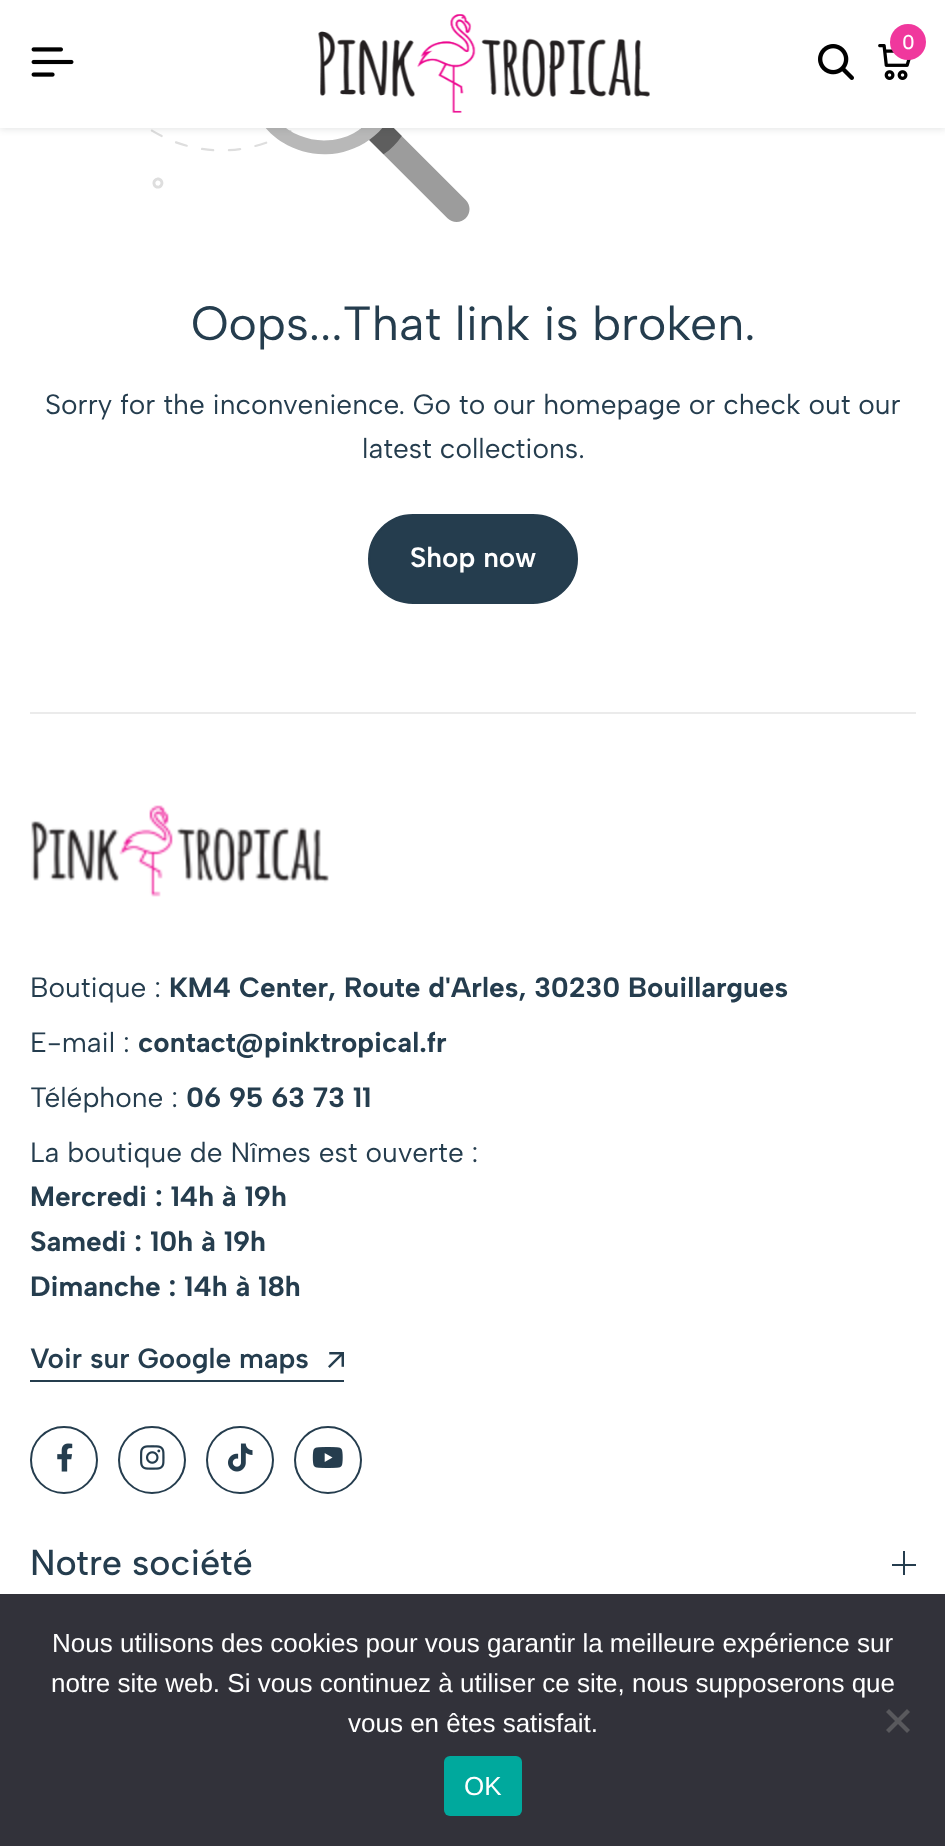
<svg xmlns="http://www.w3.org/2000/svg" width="945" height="1846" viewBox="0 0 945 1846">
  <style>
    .t1 { font: 500 20px Albert Sans; fill: #fff; }
    .t2 { font: 48px Albert Sans; fill: #253d4e; }
    .t3 { font: 28px Albert Sans; fill: #253d4e; }
    .t4 { font: 600 28px Albert Sans; fill: #fff; }
    .t5 { font: bold 28px Albert Sans; fill: #253d4e; }
    .t6 { font: 600 28px Albert Sans; fill: #253d4e; }
    .t7 { font: 500 36px Albert Sans; fill: #253d4e; }
    .t8 { font: 26px Liberation Sans; fill: #fff; }
  </style>
  <rect width="100%" height="100%" fill="#fff"/>
  <image x="150" y="128" width="320" height="94" href="images/5.png"/>
  <rect x="0" y="2" width="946" height="128" fill="#2125291a" filter="blur(3px)"/>
  <rect x="0" y="0" width="945" height="128" fill="#fff"/>
  <image x="318" y="14" width="332" height="99" href="images/1.png"/>
  <image x="878" y="44" width="33" height="36" href="images/2.png"/>
  <circle cx="908" cy="42" r="18" fill="#f0389d"/>
  <text x="902" y="49" class="t1">0</text>
  <image x="818" y="44" width="36" height="36" href="images/3.png"/>
  <image x="31" y="47" width="43" height="30" href="images/4.png"/>
  <text x="191" y="340" class="t2">Oops...That link is broken.</text>
  <text x="45" y="414" class="t3">Sorry for the inconvenience. Go to our homepage or check out our</text>
  <text x="362" y="458" class="t3">latest collections.</text>
  <rect x="369" y="515" width="208" height="88" rx="44" fill="#253d4e" stroke="#253d4e" stroke-width="2"/>
  <text x="410" y="567" class="t4">Shop now</text>
  <rect x="30" y="712" width="886" height="2" fill="#ebebeb"/>
  <image x="31" y="805" width="298" height="92" href="images/6.png"/>
  <text x="30" y="997" class="t3">Boutique :</text>
  <text x="169" y="997" class="t5">KM4 Center, Route d'Arles, 30230 Bouillargues</text>
  <text x="30" y="1052" class="t3">E-mail :</text>
  <text x="138" y="1052" class="t5">contact@pinktropical.fr</text>
  <text x="30" y="1107" class="t3">Téléphone :</text>
  <text x="186" y="1107" class="t5">06 95 63 73 11</text>
  <text x="30" y="1162" class="t3">La boutique de Nîmes est ouverte :</text>
  <text x="30" y="1206" class="t5">Mercredi : 14h à 19h</text>
  <text x="30" y="1251" class="t5">Samedi : 10h à 19h</text>
  <text x="30" y="1296" class="t5">Dimanche : 14h à 18h</text>
  <rect x="30" y="1380" width="314" height="2" fill="#253d4e"/>
  <text x="30" y="1368" class="t6">Voir sur Google maps</text>
  <image x="328" y="1352" width="16" height="16" href="images/7.png"/>
  <circle cx="64" cy="1460" r="33" fill="none" stroke="#253d4e" stroke-width="2"/>
  <image x="57" y="1443" width="16" height="29" href="images/8.png"/>
  <circle cx="152" cy="1460" r="33" fill="none" stroke="#253d4e" stroke-width="2"/>
  <image x="140" y="1445" width="25" height="25" href="images/9.png"/>
  <circle cx="240" cy="1460" r="33" fill="none" stroke="#253d4e" stroke-width="2"/>
  <image x="228" y="1443" width="25" height="29" href="images/10.png"/>
  <circle cx="328" cy="1460" r="33" fill="none" stroke="#253d4e" stroke-width="2"/>
  <image x="312" y="1447" width="31" height="21" href="images/11.png"/>
  <text x="30" y="1575" class="t7">Notre société</text>
  <rect x="892" y="1564" width="24" height="2" fill="#253d4e"/>
  <rect x="903" y="1551" width="2" height="24" fill="#253d4e"/>
  <rect x="0" y="1594" width="945" height="252" fill="#32323a"/>
  <text x="52" y="1652" class="t8">Nous utilisons des cookies pour vous garantir la meilleure expérience sur</text>
  <text x="51" y="1692" class="t8">notre site web. Si vous continuez à utiliser ce site, nous supposerons que</text>
  <text x="348" y="1732" class="t8">vous en êtes satisfait.</text>
  <path d="M907 1709L910 1712L889 1733L886 1730Z" fill="#59595d"/>
  <path d="M886 1712L889 1709L910 1730L907 1733Z" fill="#59595d"/>
  <rect x="444" y="1756" width="78" height="60" rx="6" fill="#00a99d"/>
  <text x="464" y="1795" class="t8">OK</text>
</svg>
